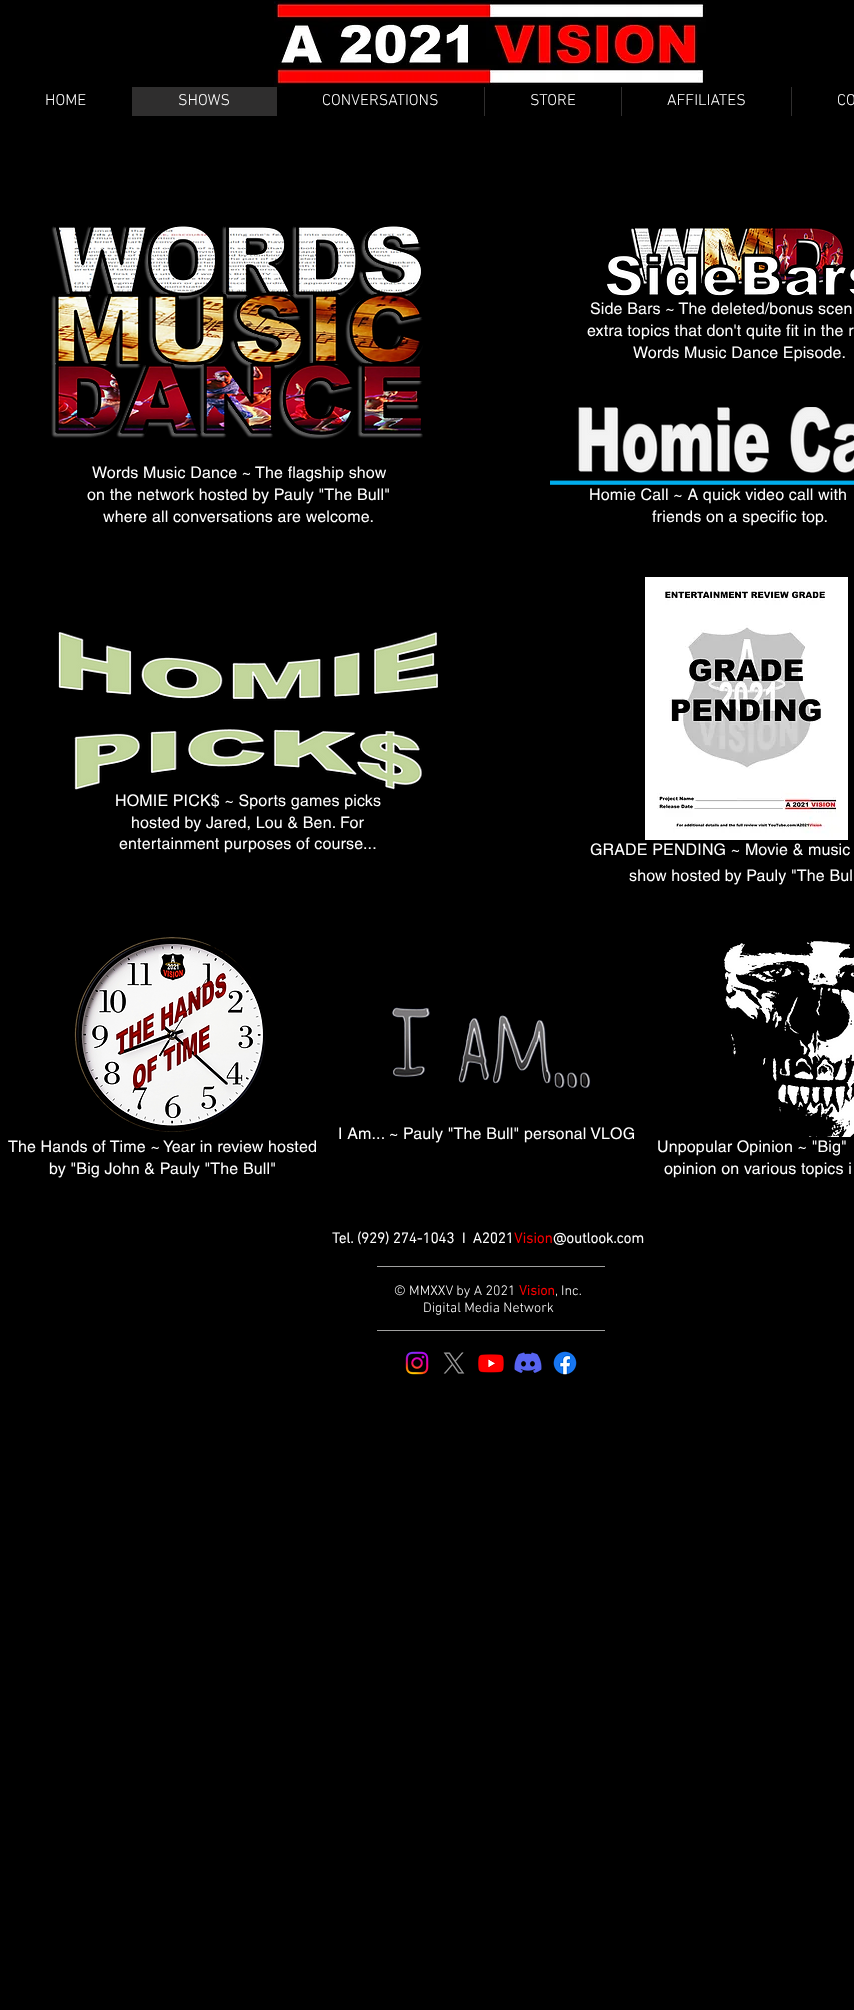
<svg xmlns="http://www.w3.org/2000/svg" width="854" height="2010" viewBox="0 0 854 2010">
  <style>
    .t1 { font: 300 16px 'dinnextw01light'; fill: #fff; }
    .t2 { font: 16px helvetica; letter-spacing: 0.15px; fill: #fff; }
    .t3 { font: bold 15px 'dinnextw01light'; fill: #fff; }
    .t4 { font: bold 15px 'dinnextw01light'; fill: #fc0000; }
    .t5 { font: 300 14px 'dinnextw01light'; fill: #fff; }
    .t6 { font: bold 14px 'dinnextw01light'; fill: #fc0000; }
  </style>
  <rect width="100%" height="100%" fill="#000"/>
  <image x="274" y="1" width="432" height="86" href="images/1.png"/>
  <text x="45" y="105" class="t1">HOME</text>
  <rect x="132" y="87" width="145" height="29" fill="#2f2e2e"/>
  <text x="178" y="105" class="t1">SHOWS</text>
  <text x="322" y="105" class="t1">CONVERSATIONS</text>
  <rect x="484" y="87" width="1" height="29" fill="#2f2e2e"/>
  <text x="530" y="105" class="t1">STORE</text>
  <rect x="621" y="87" width="1" height="29" fill="#2f2e2e"/>
  <text x="667" y="105" class="t1">AFFILIATES</text>
  <rect x="791" y="87" width="1" height="29" fill="#2f2e2e"/>
  <text x="837" y="105" class="t1">CO</text>
  <image x="51" y="226" width="372" height="213" href="images/2.png"/>
  <image x="607" y="228" width="247" height="68" href="images/3.png"/>
  <text x="590" y="314" class="t2">Side Bars ~ The deleted/bonus scen</text>
  <text x="587" y="336" class="t2">extra topics that don't quite fit in the r</text>
  <text x="633" y="358" class="t2">Words Music Dance Episode.</text>
  <image x="550" y="407" width="304" height="78" href="images/4.png"/>
  <text x="92" y="478" class="t2">Words Music Dance ~ The flagship show</text>
  <text x="87" y="500" class="t2">on the network hosted by Pauly "The Bull"</text>
  <text x="103" y="522" class="t2">where all conversations are welcome.</text>
  <text x="589" y="500" class="t2">Homie Call ~ A quick video call with</text>
  <text x="652" y="522" class="t2">friends on a specific top.</text>
  <image x="58" y="632" width="380" height="158" href="images/5.png"/>
  <image x="645" y="577" width="203" height="263" href="images/6.png"/>
  <text x="115" y="806" class="t2">HOMIE PICK$ ~ Sports games picks</text>
  <text x="131" y="828" class="t2">hosted by Jared, Lou &amp; Ben. For</text>
  <text x="119" y="849" class="t2">entertainment purposes of course...</text>
  <text x="590" y="855" class="t2">GRADE PENDING ~ Movie &amp; music</text>
  <text x="629" y="881" class="t2">show hosted by Pauly "The Bul</text>
  <image x="74" y="937" width="192" height="195" href="images/7.png"/>
  <image x="392" y="1007" width="199" height="82" href="images/8.png"/>
  <image x="724" y="941" width="130" height="196" href="images/9.png"/>
  <text x="338" y="1139" class="t2">I Am... ~ Pauly "The Bull" personal VLOG</text>
  <text x="8" y="1152" class="t2">The Hands of Time ~ Year in review hosted</text>
  <text x="49" y="1174" class="t2">by "Big John &amp; Pauly "The Bull"</text>
  <text x="657" y="1152" class="t2">Unpopular Opinion ~ "Big"</text>
  <text x="664" y="1174" class="t2">opinion on various topics i</text>
  <text x="332" y="1243" class="t3" xml:space="preserve">Tel. (929) 274-1043  I  A2021</text>
  <text x="514" y="1243" class="t4">Vision</text>
  <text x="553" y="1243" class="t3">@outlook.com</text>
  <rect x="377" y="1266" width="228" height="1" fill="#a0a09f"/>
  <text x="394" y="1295" class="t5">© MMXXV by A 2021</text>
  <text x="519" y="1295" class="t6">Vision</text>
  <text x="555" y="1295" class="t5">, Inc.</text>
  <text x="423" y="1312" class="t5">Digital Media Network</text>
  <rect x="377" y="1330" width="228" height="1" fill="#a0a09f"/>
  <image x="405" y="1351" width="24" height="24" href="images/10.png"/>
  <image x="443" y="1352" width="22" height="22" href="images/11.png"/>
  <image x="478" y="1354" width="26" height="19" href="images/12.png"/>
  <image x="514" y="1352" width="28" height="21" href="images/13.png"/>
  <image x="553" y="1351" width="24" height="24" href="images/14.png"/>
</svg>
